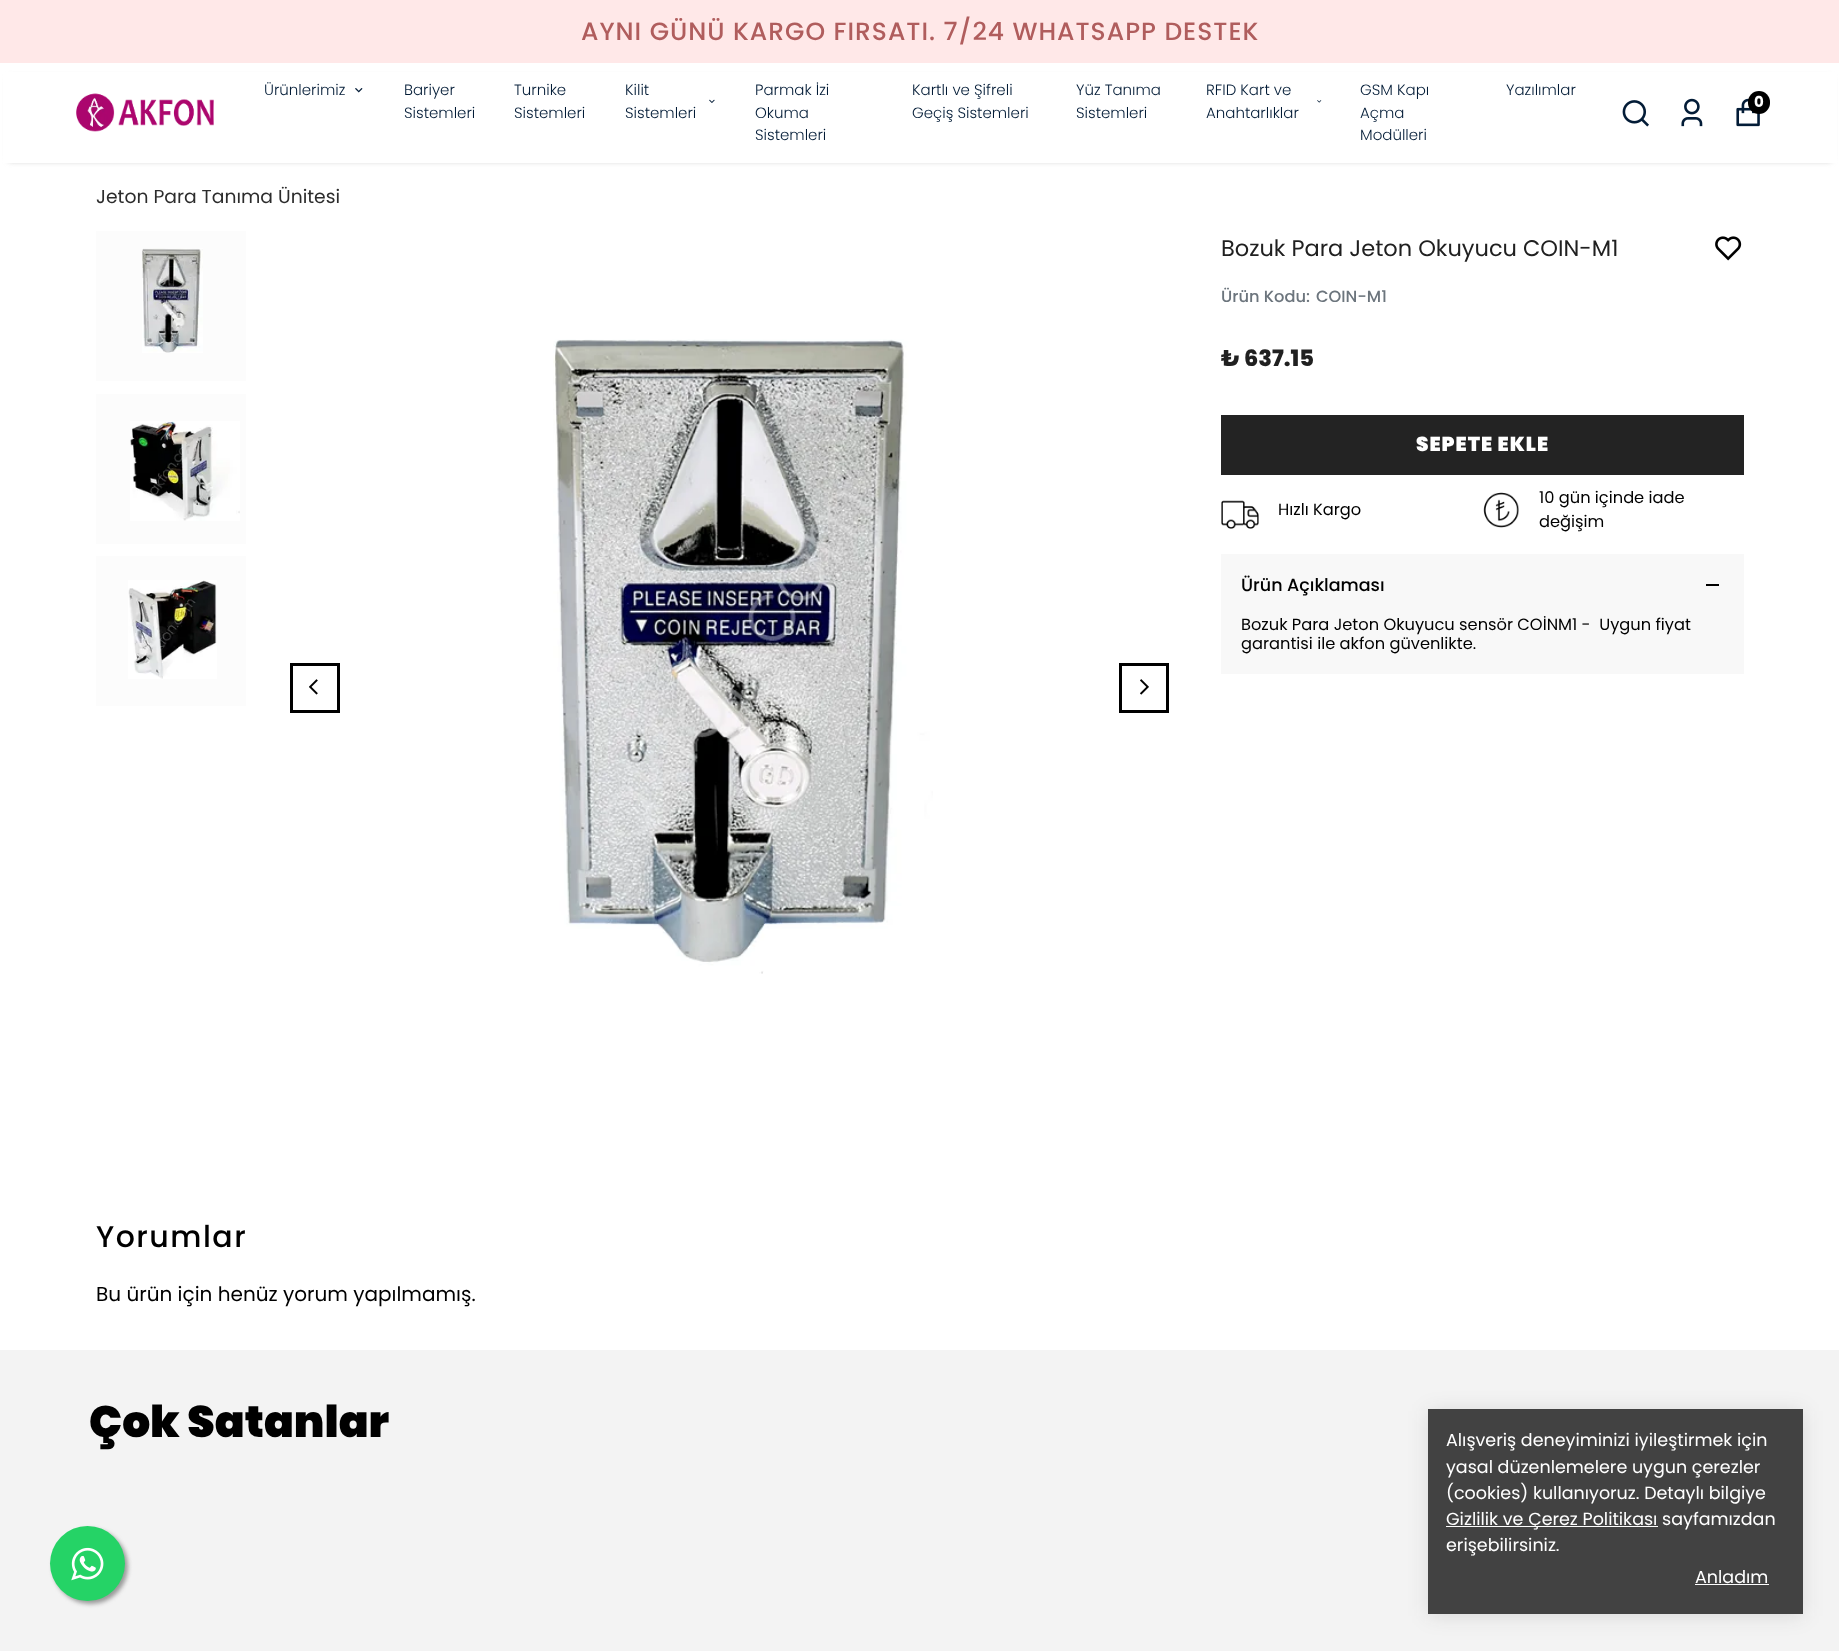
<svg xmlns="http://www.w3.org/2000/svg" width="1839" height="1651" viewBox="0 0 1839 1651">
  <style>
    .t1 { font: 500 25px Poppins; letter-spacing: 1px; fill: #b05d5d; }
    .t2 { font: 300 15px Poppins; fill: #031c37; }
    .t3 { font: bold 15px Poppins; fill: #fff; }
    .t4 { font: 17.5px Poppins; fill: #fff; }
    .t5 { font: 18.75px Poppins; fill: #2c2c2c; }
    .t6 { font: 22.5px Poppins; fill: #202020; }
    .t7 { font: 500 16.25px Poppins; fill: #6c757d; }
    .t8 { font: 800 22.5px Poppins; fill: #202020; }
    .t9 { font: 900 20px Poppins; letter-spacing: 1px; fill: #fff; }
    .t10 { font: 16.25px Poppins; fill: #000; }
    .t11 { font: 500 17.5px Poppins; fill: #000; }
    .t12 { font: 500 30px Poppins; letter-spacing: 1.5px; fill: #000; }
    .t13 { font: 20px Poppins; fill: #000; }
    .t14 { font: 900 44px Poppins; fill: #000; }
  </style>
  <defs>
    <clipPath id="clip1"><path d="M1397 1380H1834V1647H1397ZM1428 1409H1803V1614H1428Z" clip-rule="evenodd"/></clipPath>
  </defs>
  <rect width="100%" height="100%" fill="#fff"/>
  <rect x="0" y="0" width="1839" height="63" fill="#ffe8e8"/>
  <text x="581" y="40" class="t1">AYNI GÜNÜ KARGO FIRSATI. 7/24 WHATSAPP DESTEK</text>
  <rect x="9" y="78" width="1822" height="82" fill="#989898" filter="blur(3px)"/>
  <rect x="3" y="72" width="1834" height="91" fill="#fff"/>
  <image x="76" y="93" width="138" height="39" href="images/1.png"/>
  <text x="264" y="95" class="t2">Ürünlerimiz</text>
  <image x="355" y="88" width="8" height="5" href="images/2.png"/>
  <text x="404" y="95" class="t2">Bariyer</text>
  <text x="404" y="118" class="t2">Sistemleri</text>
  <text x="514" y="95" class="t2">Turnike</text>
  <text x="514" y="118" class="t2">Sistemleri</text>
  <text x="625" y="95" class="t2">Kilit</text>
  <image x="709" y="99" width="6" height="4" href="images/3.png"/>
  <text x="625" y="118" class="t2">Sistemleri</text>
  <text x="755" y="95" class="t2">Parmak İzi</text>
  <text x="755" y="118" class="t2">Okuma</text>
  <text x="755" y="140" class="t2">Sistemleri</text>
  <text x="912" y="95" class="t2">Kartlı ve Şifreli</text>
  <text x="912" y="118" class="t2">Geçiş Sistemleri</text>
  <text x="1076" y="95" class="t2">Yüz Tanıma</text>
  <text x="1076" y="118" class="t2">Sistemleri</text>
  <text x="1206" y="95" class="t2">RFID Kart ve</text>
  <image x="1317" y="100" width="5" height="3" href="images/4.png"/>
  <text x="1206" y="118" class="t2">Anahtarlıklar</text>
  <text x="1360" y="95" class="t2">GSM Kapı</text>
  <text x="1360" y="118" class="t2">Açma</text>
  <text x="1360" y="140" class="t2">Modülleri</text>
  <text x="1506" y="95" class="t2">Yazılımlar</text>
  <image x="1622" y="100" width="27" height="27" href="images/5.png"/>
  <image x="1681" y="98" width="22" height="29" href="images/6.png"/>
  <image x="1736" y="98" width="24" height="29" href="images/7.png"/>
  <rect x="1748" y="91" width="22" height="23" rx="11" fill="#000"/>
  <text x="1754" y="107" class="t3">0</text>
  <rect x="0" y="1350" width="1839" height="301" fill="#f3f3f3"/>
  <g clip-path="url(#clip1)">
    <rect x="1428" y="1411" width="375" height="205" fill="#2222221f" filter="blur(10px)"/>
  </g>
  <rect x="1428" y="1409" width="375" height="205" fill="#222222d9"/>
  <text x="1446" y="1446" class="t4">Alışveriş deneyiminizi iyileştirmek için</text>
  <text x="1446" y="1473" class="t4">yasal düzenlemelere uygun çerezler</text>
  <text x="1446" y="1499" class="t4">(cookies) kullanıyoruz. Detaylı bilgiye</text>
  <rect x="1446" y="1526" width="212" height="1" fill="#fdfdfd"/>
  <text x="1446" y="1525" class="t4">Gizlilik ve Çerez Politikası sayfamızdan</text>
  <text x="1446" y="1551" class="t4">erişebilirsiniz.</text>
  <text x="1695" y="1583" class="t4">Anladım</text>
  <rect x="1695" y="1584" width="74" height="1" fill="#fdfdfd"/>
  <text x="96" y="203" class="t5">Jeton Para Tanıma Ünitesi</text>
  <rect x="96" y="231" width="150" height="150" fill="#fcfcfc"/>
  <image x="142" y="248" width="61" height="105" href="images/8.png"/>
  <rect x="96" y="394" width="150" height="150" fill="#fcfcfc"/>
  <image x="130" y="421" width="110" height="100" href="images/9.png"/>
  <rect x="96" y="556" width="150" height="150" fill="#fcfcfc"/>
  <image x="128" y="580" width="89" height="99" href="images/10.png"/>
  <rect x="291.5" y="664.5" width="47" height="47" fill="none" stroke="#000" stroke-width="3"/>
  <image x="309" y="679" width="9" height="16" href="images/11.png"/>
  <image x="553" y="339" width="380" height="635" href="images/12.png"/>
  <rect x="1120.5" y="664.5" width="47" height="47" fill="none" stroke="#000" stroke-width="3"/>
  <image x="1140" y="679" width="9" height="16" href="images/13.png"/>
  <text x="1221" y="256" class="t6">Bozuk Para Jeton Okuyucu COIN-M1</text>
  <image x="1715" y="236" width="27" height="25" href="images/14.png"/>
  <text x="1221" y="302" class="t7">Ürün Kodu:</text>
  <text x="1316" y="302" class="t7">COIN-M1</text>
  <text x="1221" y="366" class="t8">₺ 637.15</text>
  <rect x="1221" y="415" width="523" height="60" fill="#232323"/>
  <text x="1416" y="451" class="t9">SEPETE EKLE</text>
  <image x="1221" y="500" width="38" height="29" href="images/15.png"/>
  <text x="1278" y="515" class="t10">Hızlı Kargo</text>
  <image x="1483" y="492" width="36" height="36" href="images/16.png"/>
  <text x="1539" y="503" class="t10">10 gün içinde iade</text>
  <text x="1539" y="527" class="t10">değişim</text>
  <rect x="1221" y="554" width="523" height="120" fill="#f8f8f8"/>
  <text x="1241" y="591" class="t11">Ürün Açıklaması</text>
  <rect x="1706" y="584" width="13" height="2" fill="#000"/>
  <text x="1241" y="630" class="t10" xml:space="preserve">Bozuk Para Jeton Okuyucu sensör COİNM1 -  Uygun fiyat</text>
  <text x="1241" y="649" class="t10">garantisi ile akfon güvenlikte.</text>
  <text x="96" y="1247" class="t12">Yorumlar</text>
  <text x="96" y="1301" class="t13">Bu ürün için henüz yorum yapılmamış.</text>
  <text x="89" y="1437" class="t14">Çok Satanlar</text>
  <rect x="53" y="1529" width="75" height="75" rx="37.5" fill="#999" filter="blur(2px)"/>
  <circle cx="87.5" cy="1563.5" r="37.5" fill="#25d366"/>
  <image x="71" y="1547" width="33" height="34" href="images/17.png"/>
</svg>
